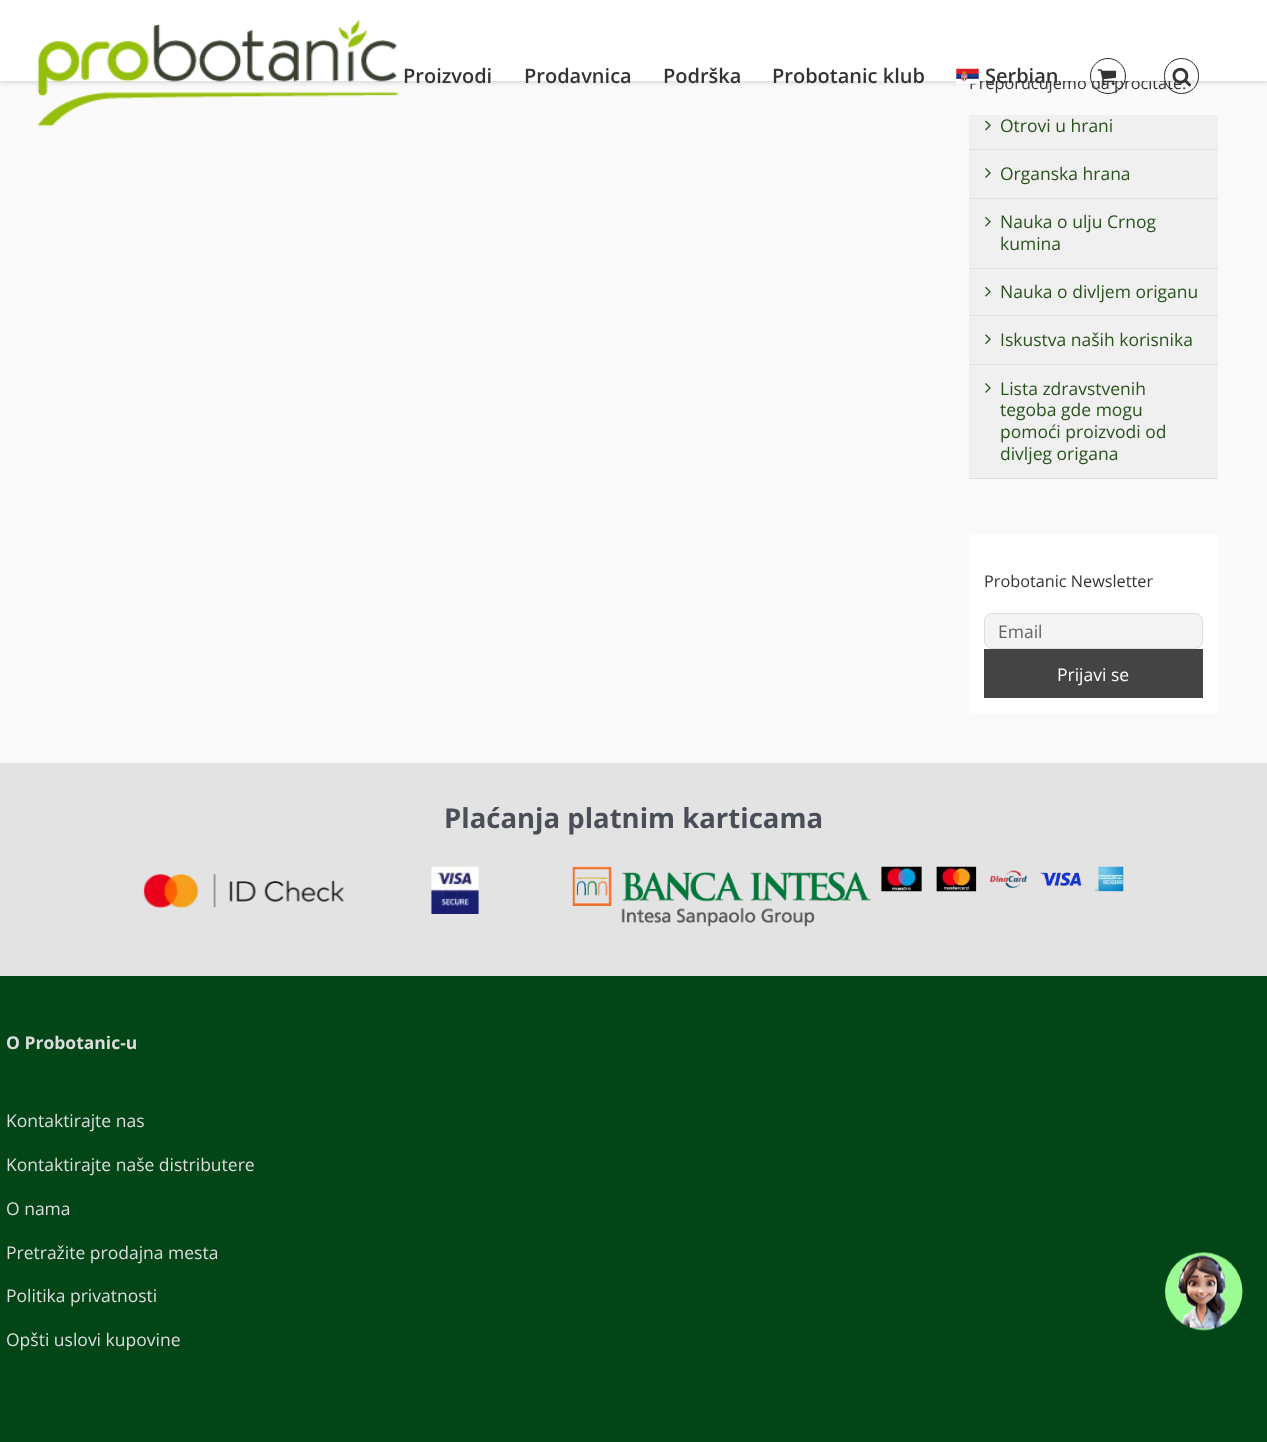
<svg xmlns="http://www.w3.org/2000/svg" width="1267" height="1442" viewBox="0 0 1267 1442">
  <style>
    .t1 { font: 16.25px Open Sans; fill: #333; }
    .t2 { font: 600 20px Open Sans; fill: #333; }
    .t3 { font: 17.5px Open Sans; fill: #29521d; }
    .t4 { font: 17.5px Open Sans; fill: #686161; }
    .t5 { font: 17.5px Open Sans; fill: #fff; }
    .t6 { font: bold 27.5px Open Sans; fill: #4a4e57; }
    .t7 { font: bold 17.5px Open Sans; fill: #ddd; }
    .t8 { font: 17.5px Open Sans; fill: #ddd; }
  </style>
  <rect width="100%" height="100%" fill="#fafafa"/>
  <rect x="0" y="1" width="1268" height="82" fill="#0000001f" filter="blur(2px)"/>
  <text x="969" y="89" class="t1">Preporučujemo da pročitate:</text>
  <rect x="0" y="0" width="1267" height="81" fill="#fff"/>
  <image x="37" y="19" width="361" height="108" href="images/1.png"/>
  <text x="403" y="83" class="t2">Proizvodi</text>
  <text x="524" y="83" class="t2">Prodavnica</text>
  <text x="663" y="83" class="t2">Podrška</text>
  <text x="772" y="83" class="t2">Probotanic klub</text>
  <image x="956" y="68" width="23" height="16" href="images/2.png"/>
  <text x="985" y="83" class="t2">Serbian</text>
  <circle cx="1108" cy="76" r="17.5" fill="none" stroke="#212934"/>
  <image x="1097" y="69" width="20" height="16" href="images/3.png"/>
  <rect x="1164.5" y="58.5" width="34" height="35" rx="17" fill="none" stroke="#212934"/>
  <image x="1172" y="67" width="19" height="20" href="images/4.png"/>
  <rect x="969" y="115" width="249" height="34" fill="#f0f0f0"/>
  <rect x="969" y="149" width="249" height="1" fill="#e0dede"/>
  <image x="985" y="120" width="6" height="11" href="images/5.png"/>
  <text x="1000" y="132" class="t3">Otrovi u hrani</text>
  <rect x="969" y="150" width="249" height="48" fill="#f0f0f0"/>
  <rect x="969" y="198" width="249" height="1" fill="#e0dede"/>
  <image x="985" y="168" width="6" height="10" href="images/6.png"/>
  <text x="1000" y="180" class="t3">Organska hrana</text>
  <rect x="969" y="199" width="249" height="69" fill="#f0f0f0"/>
  <rect x="969" y="268" width="249" height="1" fill="#e0dede"/>
  <image x="985" y="216" width="6" height="11" href="images/7.png"/>
  <text x="1000" y="228" class="t3">Nauka o ulju Crnog</text>
  <text x="1000" y="250" class="t3">kumina</text>
  <rect x="969" y="269" width="249" height="46" fill="#f0f0f0"/>
  <rect x="969" y="315" width="249" height="1" fill="#e0dede"/>
  <image x="985" y="286" width="6" height="11" href="images/7.png"/>
  <text x="1000" y="298" class="t3">Nauka o divljem origanu</text>
  <rect x="969" y="316" width="249" height="48" fill="#f0f0f0"/>
  <rect x="969" y="364" width="249" height="1" fill="#e0dede"/>
  <image x="985" y="334" width="6" height="10" href="images/8.png"/>
  <text x="1000" y="346" class="t3">Iskustva naših korisnika</text>
  <rect x="969" y="365" width="249" height="113" fill="#f0f0f0"/>
  <rect x="969" y="478" width="249" height="1" fill="#e0dede"/>
  <image x="985" y="383" width="6" height="10" href="images/6.png"/>
  <text x="1000" y="395" class="t3">Lista zdravstvenih</text>
  <text x="1000" y="416" class="t3">tegoba gde mogu</text>
  <text x="1000" y="438" class="t3">pomoći proizvodi od</text>
  <text x="1000" y="460" class="t3">divljeg origana</text>
  <rect x="969" y="535" width="249" height="178" fill="#fff"/>
  <text x="984" y="587" class="t1">Probotanic Newsletter</text>
  <rect x="984.5" y="613.5" width="218" height="35" rx="7.5" fill="#f4f4f4" stroke="#ddd"/>
  <text x="998" y="638" class="t4">Email</text>
  <rect x="984" y="649" width="219" height="49" fill="#444"/>
  <text x="1057" y="681" class="t5">Prijavi se</text>
  <rect x="0" y="763" width="1267" height="213" fill="#e3e3e4"/>
  <rect x="6" y="814" width="430" height="1" fill="#e0dede"/>
  <rect x="6" y="823" width="430" height="1" fill="#e0dede"/>
  <text x="444" y="828" class="t6">Plaćanja platnim karticama</text>
  <rect x="831" y="814" width="430" height="1" fill="#e0dede"/>
  <rect x="831" y="823" width="430" height="1" fill="#e0dede"/>
  <image x="143" y="874" width="201" height="34" href="images/9.png"/>
  <image x="431" y="866" width="48" height="48" href="images/10.png"/>
  <image x="572" y="866" width="299" height="61" href="images/11.png"/>
  <image x="881" y="866" width="243" height="26" href="images/12.png"/>
  <rect x="0" y="976" width="1267" height="466" fill="#024517"/>
  <text x="6" y="1049" class="t7">O Probotanic-u</text>
  <text x="6" y="1127" class="t8">Kontaktirajte nas</text>
  <text x="6" y="1171" class="t8">Kontaktirajte naše distributere</text>
  <text x="6" y="1215" class="t8">O nama</text>
  <text x="6" y="1259" class="t8">Pretražite prodajna mesta</text>
  <text x="6" y="1302" class="t8">Politika privatnosti</text>
  <text x="6" y="1346" class="t8">Opšti uslovi kupovine</text>
  <image x="1165" y="1252" width="78" height="79" href="images/13.png"/>
</svg>
